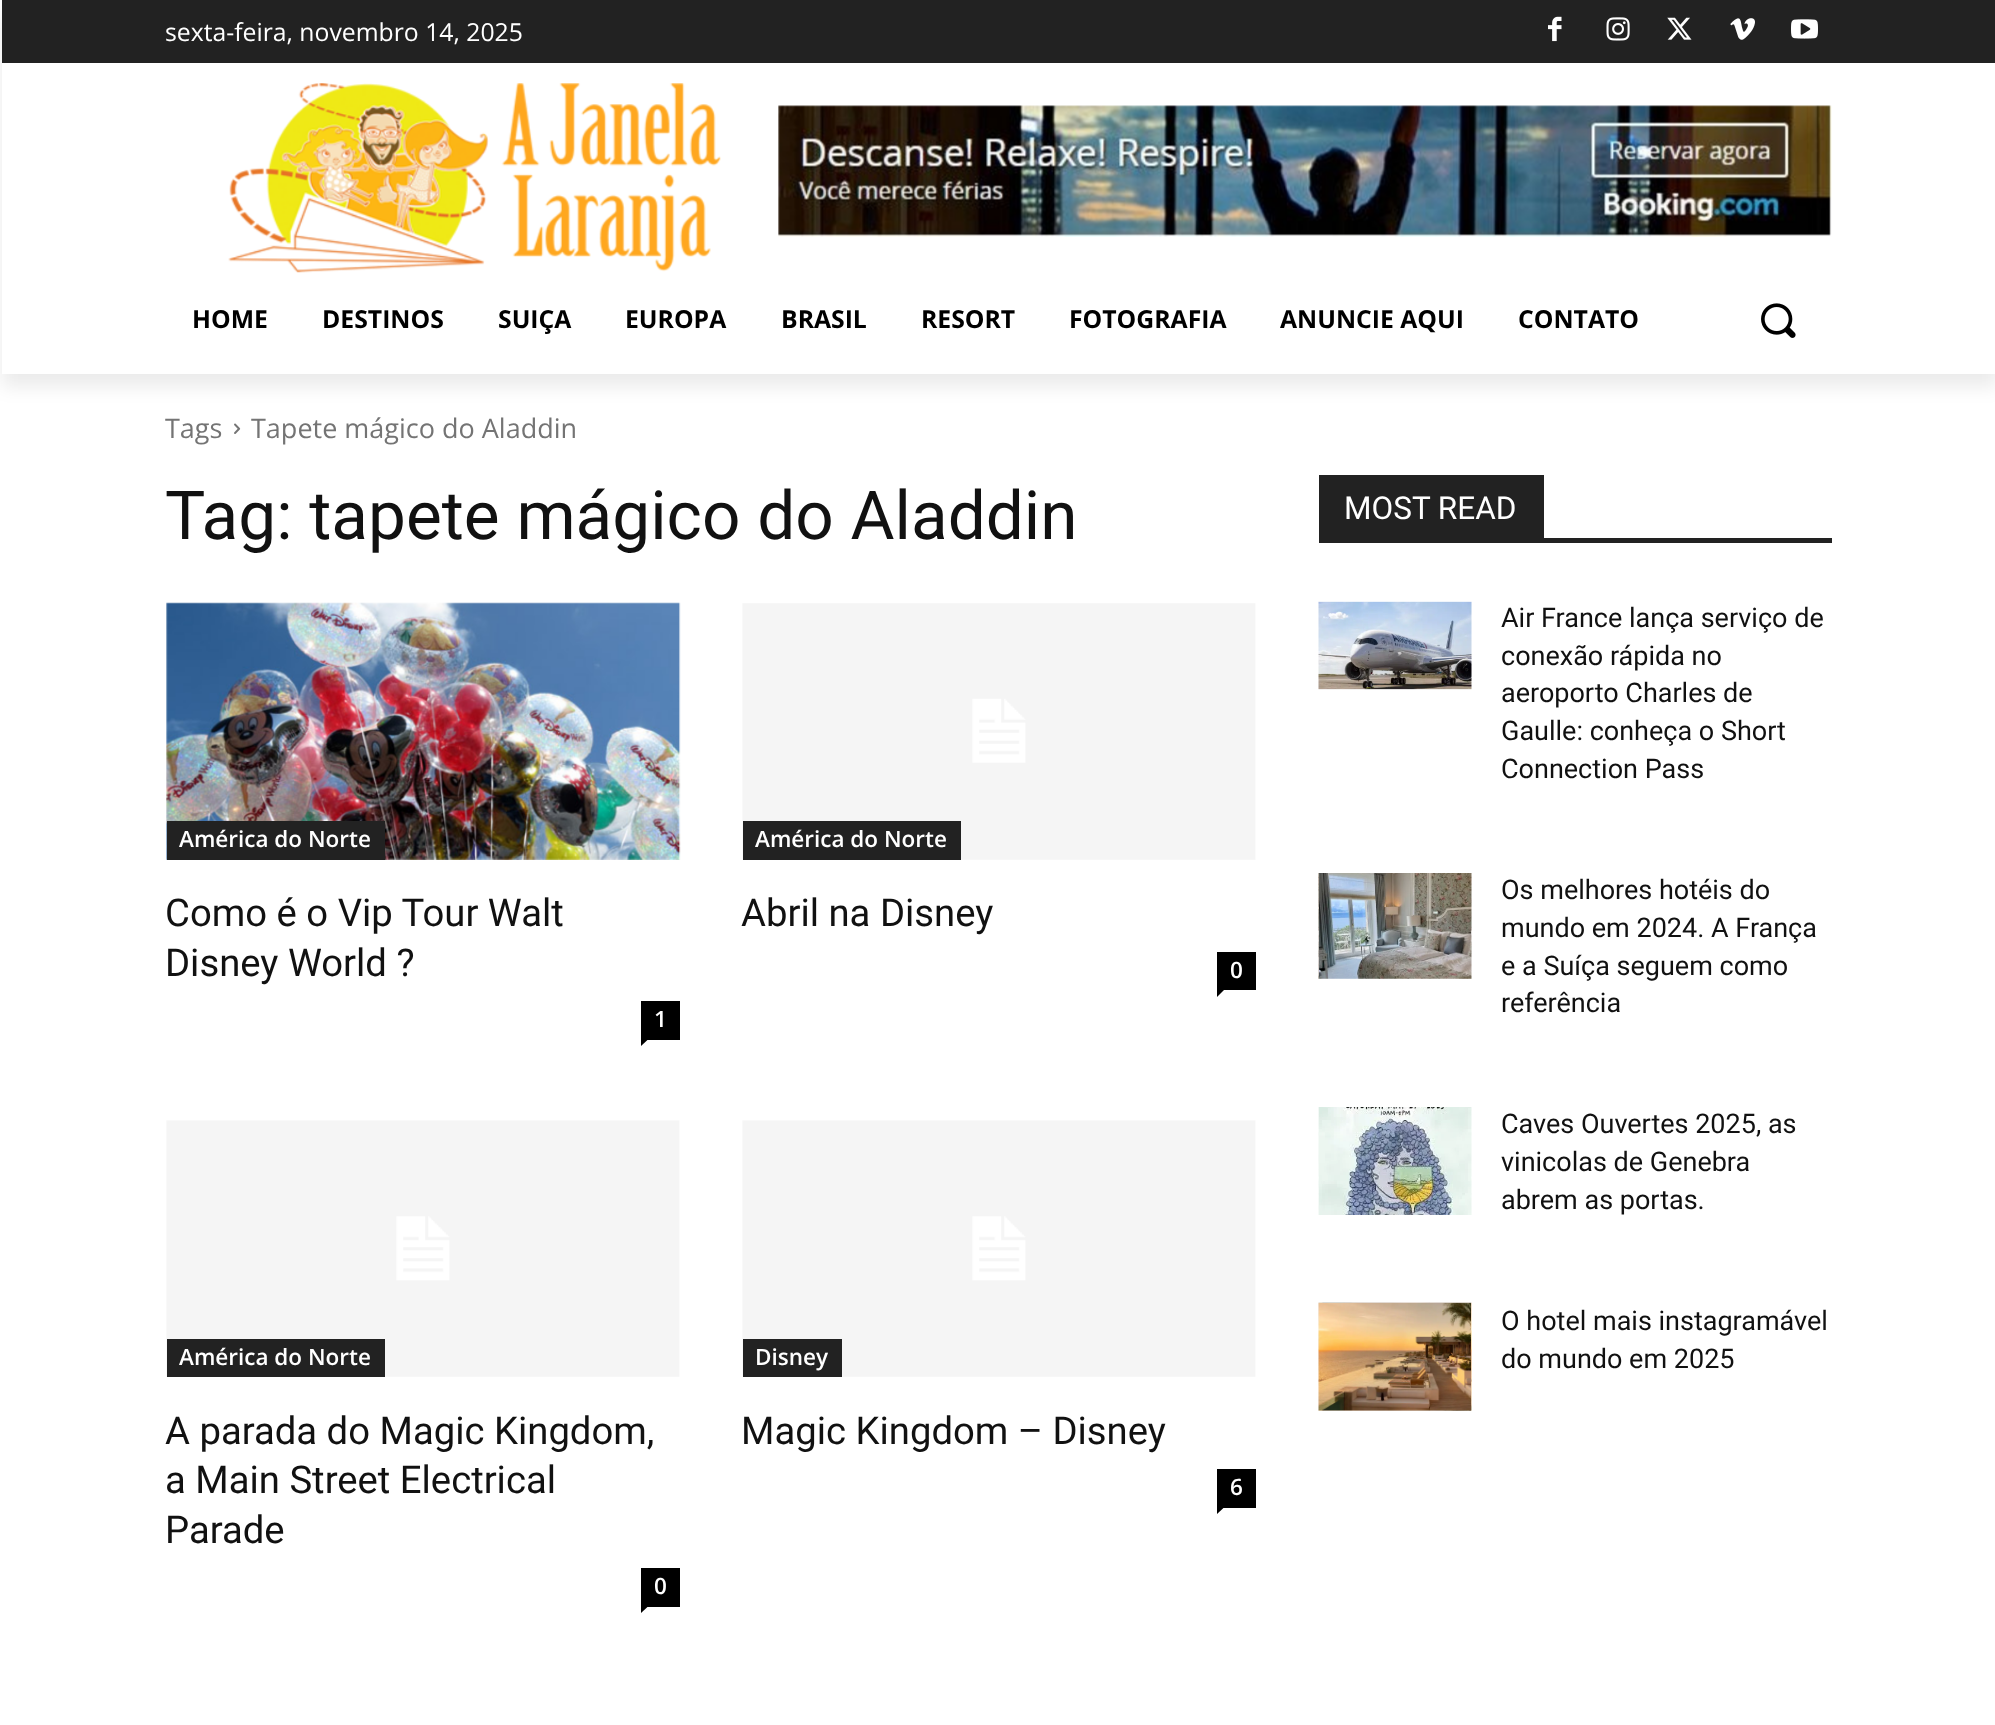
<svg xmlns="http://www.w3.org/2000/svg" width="1995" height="1725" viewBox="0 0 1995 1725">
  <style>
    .t1 { font: 24.75px Open Sans; fill: #fff; }
    .t2 { font: bold 24.75px Open Sans; fill: #000; }
    .t3 { font: 27px Open Sans; fill: #747474; }
    .t4 { font: 67.5px Roboto; fill: #111; }
    .t5 { font: 600 22.5px Open Sans; fill: #fff; }
    .t6 { font: 38.25px Roboto; fill: #111; }
    .t7 { font: 31.5px Roboto; fill: #fff; }
    .t8 { font: 27px Roboto; fill: #111; }
  </style>
  <defs>
    <clipPath id="clip1"><path d="M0 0H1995V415H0ZM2 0H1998V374H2Z" clip-rule="evenodd"/></clipPath>
  </defs>
  <rect width="100%" height="100%" fill="#fff"/>
  <rect x="2" y="0" width="1993" height="63" fill="#222"/>
  <image x="1548" y="16" width="14" height="26" href="images/1.png"/>
  <image x="1606" y="17" width="24" height="24" href="images/2.png"/>
  <image x="1667" y="17" width="25" height="23" href="images/3.png"/>
  <image x="1730" y="18" width="25" height="22" href="images/4.png"/>
  <image x="1791" y="19" width="27" height="20" href="images/5.png"/>
  <image x="228" y="83" width="493" height="190" href="images/6.png"/>
  <image x="778" y="105" width="1054" height="132" href="images/7.png"/>
  <g clip-path="url(#clip1)">
    <rect x="2" y="14" width="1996" height="373" fill="#00000014" filter="blur(9px)"/>
  </g>
  <text x="165" y="41" class="t1">sexta-feira, novembro 14, 2025</text>
  <text x="192" y="328" class="t2">HOME</text>
  <text x="322" y="328" class="t2">DESTINOS</text>
  <text x="498" y="328" class="t2">SUIÇA</text>
  <text x="625" y="328" class="t2">EUROPA</text>
  <text x="781" y="328" class="t2">BRASIL</text>
  <text x="921" y="328" class="t2">RESORT</text>
  <text x="1069" y="328" class="t2">FOTOGRAFIA</text>
  <text x="1280" y="328" class="t2">ANUNCIE AQUI</text>
  <text x="1518" y="328" class="t2">CONTATO</text>
  <image x="1761" y="303" width="35" height="35" href="images/8.png"/>
  <text x="165" y="438" class="t3">Tags</text>
  <image x="234" y="423" width="7" height="11" href="images/9.png"/>
  <text x="251" y="438" class="t3">Tapete mágico do Aladdin</text>
  <text x="165" y="539" class="t4">Tag: tapete mágico do Aladdin</text>
  <image x="166" y="602" width="515" height="258" href="images/10.png"/>
  <rect x="167" y="821" width="218" height="39" fill="#222"/>
  <text x="179" y="847" class="t5">América do Norte</text>
  <text x="165" y="926" class="t6">Como é o Vip Tour Walt</text>
  <text x="165" y="976" class="t6">Disney World ?</text>
  <rect x="641" y="1001" width="39" height="39" fill="#000"/>
  <text x="654" y="1027" class="t5">1</text>
  <path d="M641 1039.5H648L641 1046Z" fill="#000"/>
  <image x="742" y="603" width="514" height="257" href="images/11.png"/>
  <rect x="743" y="821" width="218" height="39" fill="#222"/>
  <text x="755" y="847" class="t5">América do Norte</text>
  <text x="741" y="926" class="t6">Abril na Disney</text>
  <rect x="1217" y="952" width="39" height="38" fill="#000"/>
  <text x="1230" y="978" class="t5">0</text>
  <path d="M1217 990H1224L1217 997Z" fill="#000"/>
  <image x="166" y="1120" width="514" height="257" href="images/12.png"/>
  <rect x="167" y="1339" width="218" height="38" fill="#222"/>
  <text x="179" y="1365" class="t5">América do Norte</text>
  <text x="165" y="1444" class="t6">A parada do Magic Kingdom,</text>
  <text x="165" y="1493" class="t6">a Main Street Electrical</text>
  <text x="165" y="1543" class="t6">Parade</text>
  <rect x="641" y="1568" width="39" height="39" fill="#000"/>
  <text x="654" y="1594" class="t5">0</text>
  <path d="M641 1606.5H648L641 1613Z" fill="#000"/>
  <image x="742" y="1120" width="514" height="257" href="images/13.png"/>
  <rect x="743" y="1339" width="99" height="38" fill="#222"/>
  <text x="755" y="1365" class="t5">Disney</text>
  <text x="741" y="1444" class="t6">Magic Kingdom – Disney</text>
  <rect x="1217" y="1469" width="39" height="39" fill="#000"/>
  <text x="1230" y="1495" class="t5">6</text>
  <path d="M1217 1507.5H1224L1217 1514Z" fill="#000"/>
  <rect x="1319" y="538" width="513" height="5" fill="#222"/>
  <rect x="1319" y="475" width="225" height="63" fill="#222"/>
  <text x="1344" y="519" class="t7">MOST READ</text>
  <image x="1318" y="601" width="154" height="89" href="images/14.png"/>
  <text x="1501" y="627" class="t8">Air France lança serviço de</text>
  <text x="1501" y="665" class="t8">conexão rápida no</text>
  <text x="1501" y="702" class="t8">aeroporto Charles de</text>
  <text x="1501" y="740" class="t8">Gaulle: conheça o Short</text>
  <text x="1501" y="778" class="t8">Connection Pass</text>
  <image x="1318" y="873" width="154" height="106" href="images/15.png"/>
  <text x="1501" y="899" class="t8">Os melhores hotéis do</text>
  <text x="1501" y="937" class="t8">mundo em 2024. A França</text>
  <text x="1501" y="975" class="t8">e a Suíça seguem como</text>
  <text x="1501" y="1012" class="t8">referência</text>
  <image x="1318" y="1107" width="154" height="108" href="images/16.png"/>
  <text x="1501" y="1133" class="t8">Caves Ouvertes 2025, as</text>
  <text x="1501" y="1171" class="t8">vinicolas de Genebra</text>
  <text x="1501" y="1209" class="t8">abrem as portas.</text>
  <image x="1318" y="1302" width="154" height="109" href="images/17.png"/>
  <text x="1501" y="1330" class="t8">O hotel mais instagramável</text>
  <text x="1501" y="1368" class="t8">do mundo em 2025</text>
</svg>
